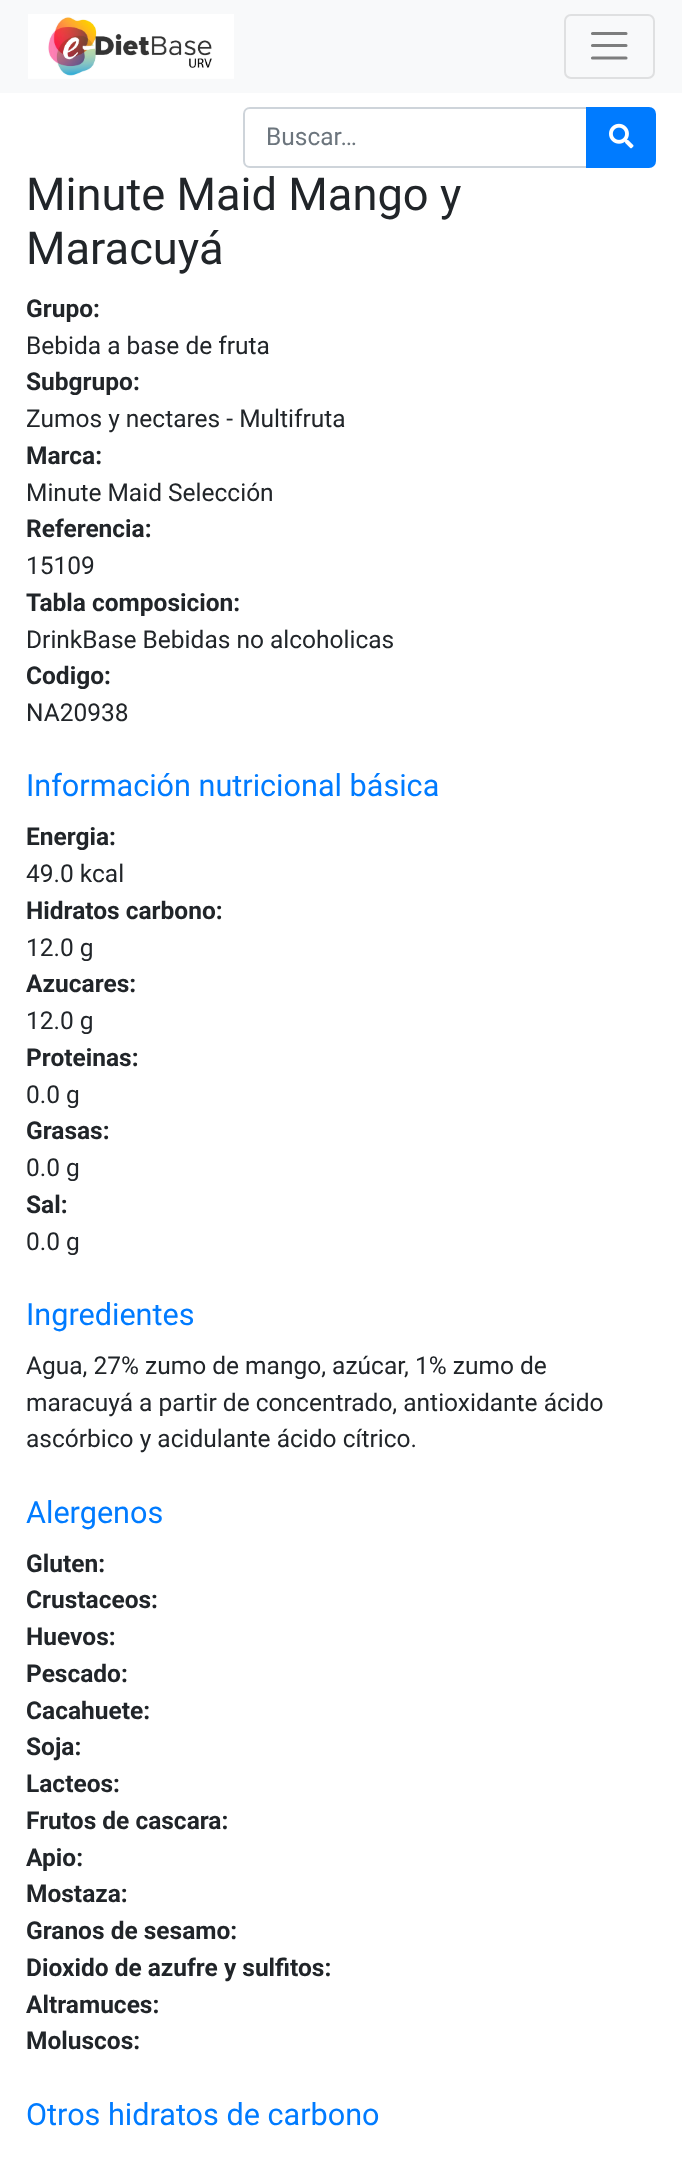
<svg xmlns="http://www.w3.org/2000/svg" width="682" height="2172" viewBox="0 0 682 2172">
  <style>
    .t1 { font: 24.5px Roboto; fill: #6c757d; }
    .t2 { font: 45.25px Roboto; fill: #212529; }
    .t3 { font: bold 24.5px Roboto; fill: #212529; }
    .t4 { font: 24.5px Roboto; fill: #212529; }
    .t5 { font: 30.6px Roboto; fill: #007bff; }
  </style>
  <rect width="100%" height="100%" fill="#fff"/>
  <rect x="0" y="0" width="682" height="93" fill="#f8f9fa"/>
  <image x="28" y="14" width="206" height="65" href="images/1.png"/>
  <rect x="565" y="15" width="89" height="63" rx="6" fill="none" stroke="#dfe0e1" stroke-width="2"/>
  <path d="M592.5 33.5H626M592.5 45.5H626M592.5 58H626" fill="none" stroke="#7c7d7d" stroke-width="3.1" stroke-linecap="round"/>
  <path d="M250 108H587V167H250C246.5 167 244 164.5 244 161V114C244 110.5 246.5 108 250 108Z" fill="none" stroke="#ced4da" stroke-width="2"/>
  <text x="266" y="145" class="t1">Buscar…</text>
  <path d="M587 108H649C652.5 108 655 110.5 655 114V161C655 164.5 652.5 167 649 167H587Z" fill="#007bff" stroke="#007bff" stroke-width="2"/>
  <image x="609" y="123" width="25" height="26" href="images/2.png"/>
  <text x="26" y="210" class="t2">Minute Maid Mango y</text>
  <text x="26" y="264" class="t2">Maracuyá</text>
  <text x="26" y="317" class="t3">Grupo:</text>
  <text x="26" y="354" class="t4">Bebida a base de fruta</text>
  <text x="26" y="390" class="t3">Subgrupo:</text>
  <text x="26" y="427" class="t4">Zumos y nectares - Multifruta</text>
  <text x="26" y="464" class="t3">Marca:</text>
  <text x="26" y="501" class="t4">Minute Maid Selección</text>
  <text x="26" y="537" class="t3">Referencia:</text>
  <text x="26" y="574" class="t4">15109</text>
  <text x="26" y="611" class="t3">Tabla composicion:</text>
  <text x="26" y="648" class="t4">DrinkBase Bebidas no alcoholicas</text>
  <text x="26" y="684" class="t3">Codigo:</text>
  <text x="26" y="721" class="t4">NA20938</text>
  <text x="26" y="796" class="t5">Información nutricional básica</text>
  <text x="26" y="845" class="t3">Energia:</text>
  <text x="26" y="882" class="t4">49.0 kcal</text>
  <text x="26" y="919" class="t3">Hidratos carbono:</text>
  <text x="26" y="956" class="t4">12.0 g</text>
  <text x="26" y="992" class="t3">Azucares:</text>
  <text x="26" y="1029" class="t4">12.0 g</text>
  <text x="26" y="1066" class="t3">Proteinas:</text>
  <text x="26" y="1103" class="t4">0.0 g</text>
  <text x="26" y="1139" class="t3">Grasas:</text>
  <text x="26" y="1176" class="t4">0.0 g</text>
  <text x="26" y="1213" class="t3">Sal:</text>
  <text x="26" y="1250" class="t4">0.0 g</text>
  <text x="26" y="1325" class="t5">Ingredientes</text>
  <text x="26" y="1374" class="t4">Agua, 27% zumo de mango, azúcar, 1% zumo de</text>
  <text x="26" y="1411" class="t4">maracuyá a partir de concentrado, antioxidante ácido</text>
  <text x="26" y="1447" class="t4">ascórbico y acidulante ácido cítrico.</text>
  <text x="26" y="1523" class="t5">Alergenos</text>
  <text x="26" y="1572" class="t3">Gluten:</text>
  <text x="26" y="1608" class="t3">Crustaceos:</text>
  <text x="26" y="1645" class="t3">Huevos:</text>
  <text x="26" y="1682" class="t3">Pescado:</text>
  <text x="26" y="1719" class="t3">Cacahuete:</text>
  <text x="26" y="1755" class="t3">Soja:</text>
  <text x="26" y="1792" class="t3">Lacteos:</text>
  <text x="26" y="1829" class="t3">Frutos de cascara:</text>
  <text x="26" y="1866" class="t3">Apio:</text>
  <text x="26" y="1902" class="t3">Mostaza:</text>
  <text x="26" y="1939" class="t3">Granos de sesamo:</text>
  <text x="26" y="1976" class="t3">Dioxido de azufre y sulfitos:</text>
  <text x="26" y="2013" class="t3">Altramuces:</text>
  <text x="26" y="2049" class="t3">Moluscos:</text>
  <text x="26" y="2125" class="t5">Otros hidratos de carbono</text>
</svg>
